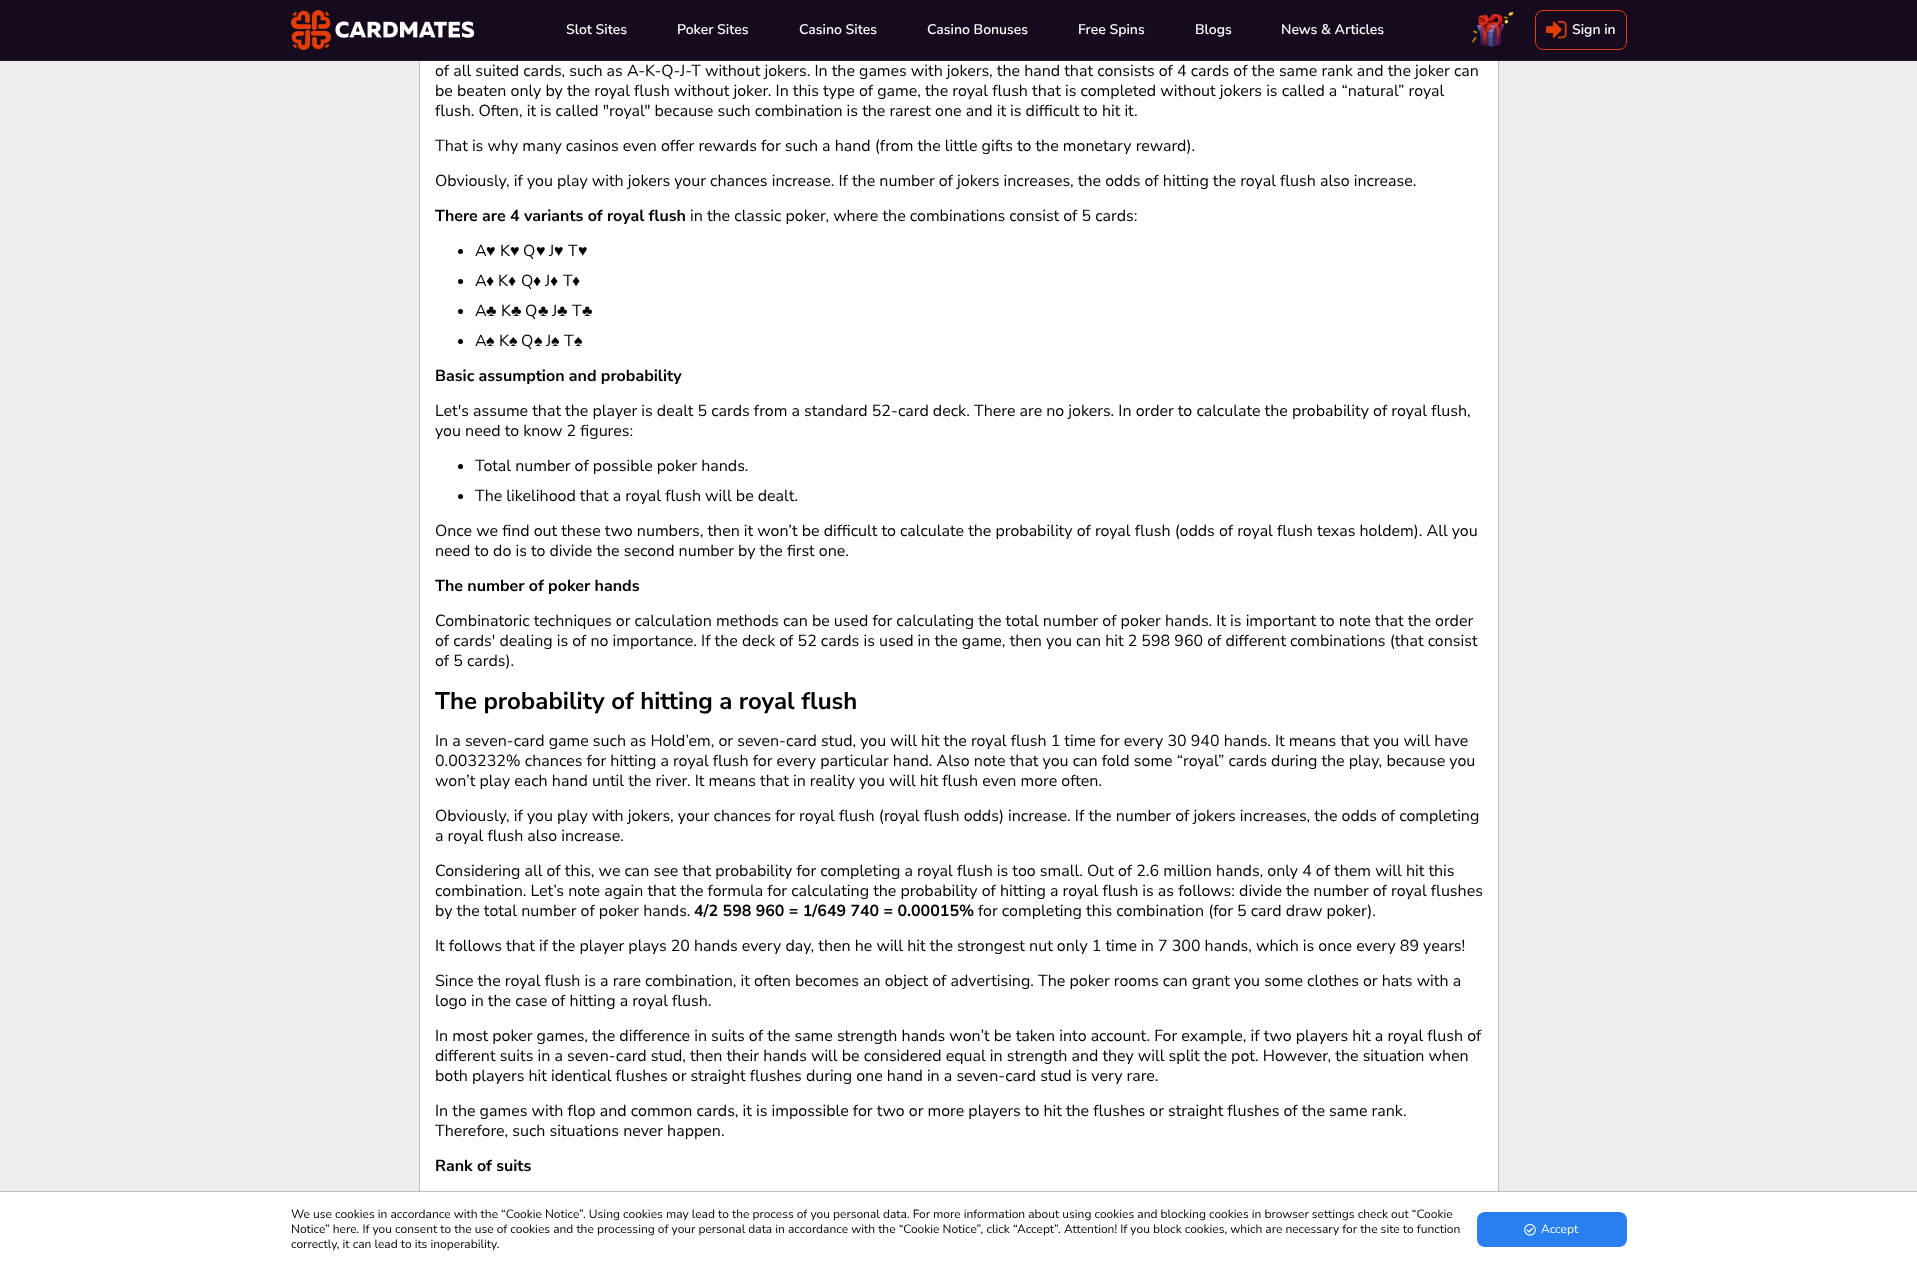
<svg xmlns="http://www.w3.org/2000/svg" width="1917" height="1267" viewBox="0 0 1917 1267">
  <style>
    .t1 { font: 600 14px Nunito Sans; fill: #fff; }
    .t2 { font: 16px Nunito Sans; fill: #000; }
    .t3 { font: bold 16px Nunito Sans; fill: #000; }
    .t4 { font: 16px Liberation Sans; fill: #000; }
    .t5 { font: bold 24px Nunito Sans; fill: #000; }
    .t6 { font: 12px Nunito Sans; fill: #000; }
    .t7 { font: 12px Nunito Sans; fill: #fff; }
  </style>
  <rect width="100%" height="100%" fill="#ededed"/>
  <rect x="420" y="61" width="1078" height="1130" fill="#fff"/>
  <rect x="419.5" y="-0.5" width="1079" height="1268" fill="none" stroke="#c0c0c0"/>
  <rect x="0" y="0" width="1917" height="60" fill="#160b1e"/>
  <rect x="0" y="60" width="1917" height="1" fill="#241e3a"/>
  <image x="291" y="10" width="184" height="40" href="images/1.png"/>
  <text x="566" y="34" class="t1">Slot Sites</text>
  <text x="677" y="34" class="t1">Poker Sites</text>
  <text x="799" y="34" class="t1">Casino Sites</text>
  <text x="927" y="34" class="t1">Casino Bonuses</text>
  <text x="1078" y="34" class="t1">Free Spins</text>
  <text x="1195" y="34" class="t1">Blogs</text>
  <text x="1281" y="34" class="t1">News &amp; Articles</text>
  <image x="1472" y="11" width="42" height="36" href="images/2.png"/>
  <rect x="1535.5" y="10.5" width="91" height="39" rx="7.5" fill="none" stroke="#e23c08"/>
  <image x="1546" y="21" width="21" height="18" href="images/3.png"/>
  <text x="1572" y="34" class="t1">Sign in</text>
  <text x="435" y="76" class="t2">of all suited cards, such as A-K-Q-J-T without jokers. In the games with jokers, the hand that consists of 4 cards of the same rank and the joker can</text>
  <text x="435" y="96" class="t2">be beaten only by the royal flush without joker. In this type of game, the royal flush that is completed without jokers is called a “natural” royal</text>
  <text x="435" y="116" class="t2">flush. Often, it is called "royal" because such combination is the rarest one and it is difficult to hit it.</text>
  <text x="435" y="151" class="t2">That is why many casinos even offer rewards for such a hand (from the little gifts to the monetary reward).</text>
  <text x="435" y="186" class="t2">Obviously, if you play with jokers your chances increase. If the number of jokers increases, the odds of hitting the royal flush also increase.</text>
  <text x="435" y="221" class="t3">There are 4 variants of royal flush</text>
  <text x="690" y="221" class="t2">in the classic poker, where the combinations consist of 5 cards:</text>
  <circle cx="460.5" cy="251.5" r="2.5" fill="#000"/>
  <text x="475" y="256" class="t2">A</text>
  <text x="486" y="256" class="t4">♥</text>
  <text x="500" y="256" class="t2">K</text>
  <text x="510" y="256" class="t4">♥</text>
  <text x="523" y="256" class="t2">Q</text>
  <text x="536" y="256" class="t4">♥</text>
  <text x="549" y="256" class="t2">J</text>
  <text x="554" y="256" class="t4">♥</text>
  <text x="568" y="256" class="t2">T</text>
  <text x="578" y="256" class="t4">♥</text>
  <circle cx="460.5" cy="281.5" r="2.5" fill="#000"/>
  <text x="475" y="286" class="t2">A</text>
  <text x="486" y="286" class="t4">♦</text>
  <text x="498" y="286" class="t2">K</text>
  <text x="508" y="286" class="t4">♦</text>
  <text x="521" y="286" class="t2">Q</text>
  <text x="533" y="286" class="t4">♦</text>
  <text x="545" y="286" class="t2">J</text>
  <text x="550" y="286" class="t4">♦</text>
  <text x="563" y="286" class="t2">T</text>
  <text x="572" y="286" class="t4">♦</text>
  <circle cx="460.5" cy="311.5" r="2.5" fill="#000"/>
  <text x="475" y="316" class="t2">A</text>
  <text x="486" y="316" class="t4">♣</text>
  <text x="501" y="316" class="t2">K</text>
  <text x="511" y="316" class="t4">♣</text>
  <text x="525" y="316" class="t2">Q</text>
  <text x="538" y="316" class="t4">♣</text>
  <text x="552" y="316" class="t2">J</text>
  <text x="557" y="316" class="t4">♣</text>
  <text x="572" y="316" class="t2">T</text>
  <text x="582" y="316" class="t4">♣</text>
  <circle cx="460.5" cy="341.5" r="2.5" fill="#000"/>
  <text x="475" y="346" class="t2">A</text>
  <text x="486" y="346" class="t4">♠</text>
  <text x="499" y="346" class="t2">K</text>
  <text x="509" y="346" class="t4">♠</text>
  <text x="521" y="346" class="t2">Q</text>
  <text x="534" y="346" class="t4">♠</text>
  <text x="546" y="346" class="t2">J</text>
  <text x="551" y="346" class="t4">♠</text>
  <text x="564" y="346" class="t2">T</text>
  <text x="574" y="346" class="t4">♠</text>
  <text x="435" y="381" class="t3">Basic assumption and probability</text>
  <text x="435" y="416" class="t2">Let's assume that the player is dealt 5 cards from a standard 52-card deck. There are no jokers. In order to calculate the probability of royal flush,</text>
  <text x="435" y="436" class="t2">you need to know 2 figures:</text>
  <circle cx="460.5" cy="466.5" r="2.5" fill="#000"/>
  <text x="475" y="471" class="t2">Total number of possible poker hands.</text>
  <circle cx="460.5" cy="496.5" r="2.5" fill="#000"/>
  <text x="475" y="501" class="t2">The likelihood that a royal flush will be dealt.</text>
  <text x="435" y="536" class="t2">Once we find out these two numbers, then it won’t be difficult to calculate the probability of royal flush (odds of royal flush texas holdem). All you</text>
  <text x="435" y="556" class="t2">need to do is to divide the second number by the first one.</text>
  <text x="435" y="591" class="t3">The number of poker hands</text>
  <text x="435" y="626" class="t2">Combinatoric techniques or calculation methods can be used for calculating the total number of poker hands. It is important to note that the order</text>
  <text x="435" y="646" class="t2">of cards' dealing is of no importance. If the deck of 52 cards is used in the game, then you can hit 2 598 960 of different combinations (that consist</text>
  <text x="435" y="666" class="t2">of 5 cards).</text>
  <text x="435" y="709" class="t5">The probability of hitting a royal flush</text>
  <text x="435" y="746" class="t2">In a seven-card game such as Hold’em, or seven-card stud, you will hit the royal flush 1 time for every 30 940 hands. It means that you will have</text>
  <text x="435" y="766" class="t2">0.003232% chances for hitting a royal flush for every particular hand. Also note that you can fold some “royal” cards during the play, because you</text>
  <text x="435" y="786" class="t2">won’t play each hand until the river. It means that in reality you will hit flush even more often.</text>
  <text x="435" y="821" class="t2">Obviously, if you play with jokers, your chances for royal flush (royal flush odds) increase. If the number of jokers increases, the odds of completing</text>
  <text x="435" y="841" class="t2">a royal flush also increase.</text>
  <text x="435" y="876" class="t2">Considering all of this, we can see that probability for completing a royal flush is too small. Out of 2.6 million hands, only 4 of them will hit this</text>
  <text x="435" y="896" class="t2">combination. Let’s note again that the formula for calculating the probability of hitting a royal flush is as follows: divide the number of royal flushes</text>
  <text x="435" y="916" class="t2">by the total number of poker hands.</text>
  <text x="694" y="916" class="t3">4/2 598 960 = 1/649 740 = 0.00015%</text>
  <text x="978" y="916" class="t2">for completing this combination (for 5 card draw poker).</text>
  <text x="435" y="951" class="t2">It follows that if the player plays 20 hands every day, then he will hit the strongest nut only 1 time in 7 300 hands, which is once every 89 years!</text>
  <text x="435" y="986" class="t2">Since the royal flush is a rare combination, it often becomes an object of advertising. The poker rooms can grant you some clothes or hats with a</text>
  <text x="435" y="1006" class="t2">logo in the case of hitting a royal flush.</text>
  <text x="435" y="1041" class="t2">In most poker games, the difference in suits of the same strength hands won’t be taken into account. For example, if two players hit a royal flush of</text>
  <text x="435" y="1061" class="t2">different suits in a seven-card stud, then their hands will be considered equal in strength and they will split the pot. However, the situation when</text>
  <text x="435" y="1081" class="t2">both players hit identical flushes or straight flushes during one hand in a seven-card stud is very rare.</text>
  <text x="435" y="1116" class="t2">In the games with flop and common cards, it is impossible for two or more players to hit the flushes or straight flushes of the same rank.</text>
  <text x="435" y="1136" class="t2">Therefore, such situations never happen.</text>
  <text x="435" y="1171" class="t3">Rank of suits</text>
  <rect x="0" y="1192" width="1917" height="75" fill="#fff"/>
  <rect x="0" y="1191" width="1917" height="1" fill="#c0c0c0"/>
  <text x="291" y="1218" class="t6">We use cookies in accordance with the “Cookie Notice”. Using cookies may lead to the process of you personal data. For more information about using cookies and blocking cookies in browser settings check out “Cookie</text>
  <text x="291" y="1233" class="t6">Notice” here. If you consent to the use of cookies and the processing of your personal data in accordance with the “Cookie Notice”, click “Accept”. Attention! If you block cookies, which are necessary for the site to function</text>
  <text x="291" y="1248" class="t6">correctly, it can lead to its inoperability.</text>
  <rect x="1477" y="1212" width="150" height="35" rx="8" fill="#287ff0"/>
  <image x="1524" y="1224" width="12" height="12" href="images/4.png"/>
  <text x="1541" y="1233" class="t7">Accept</text>
</svg>
